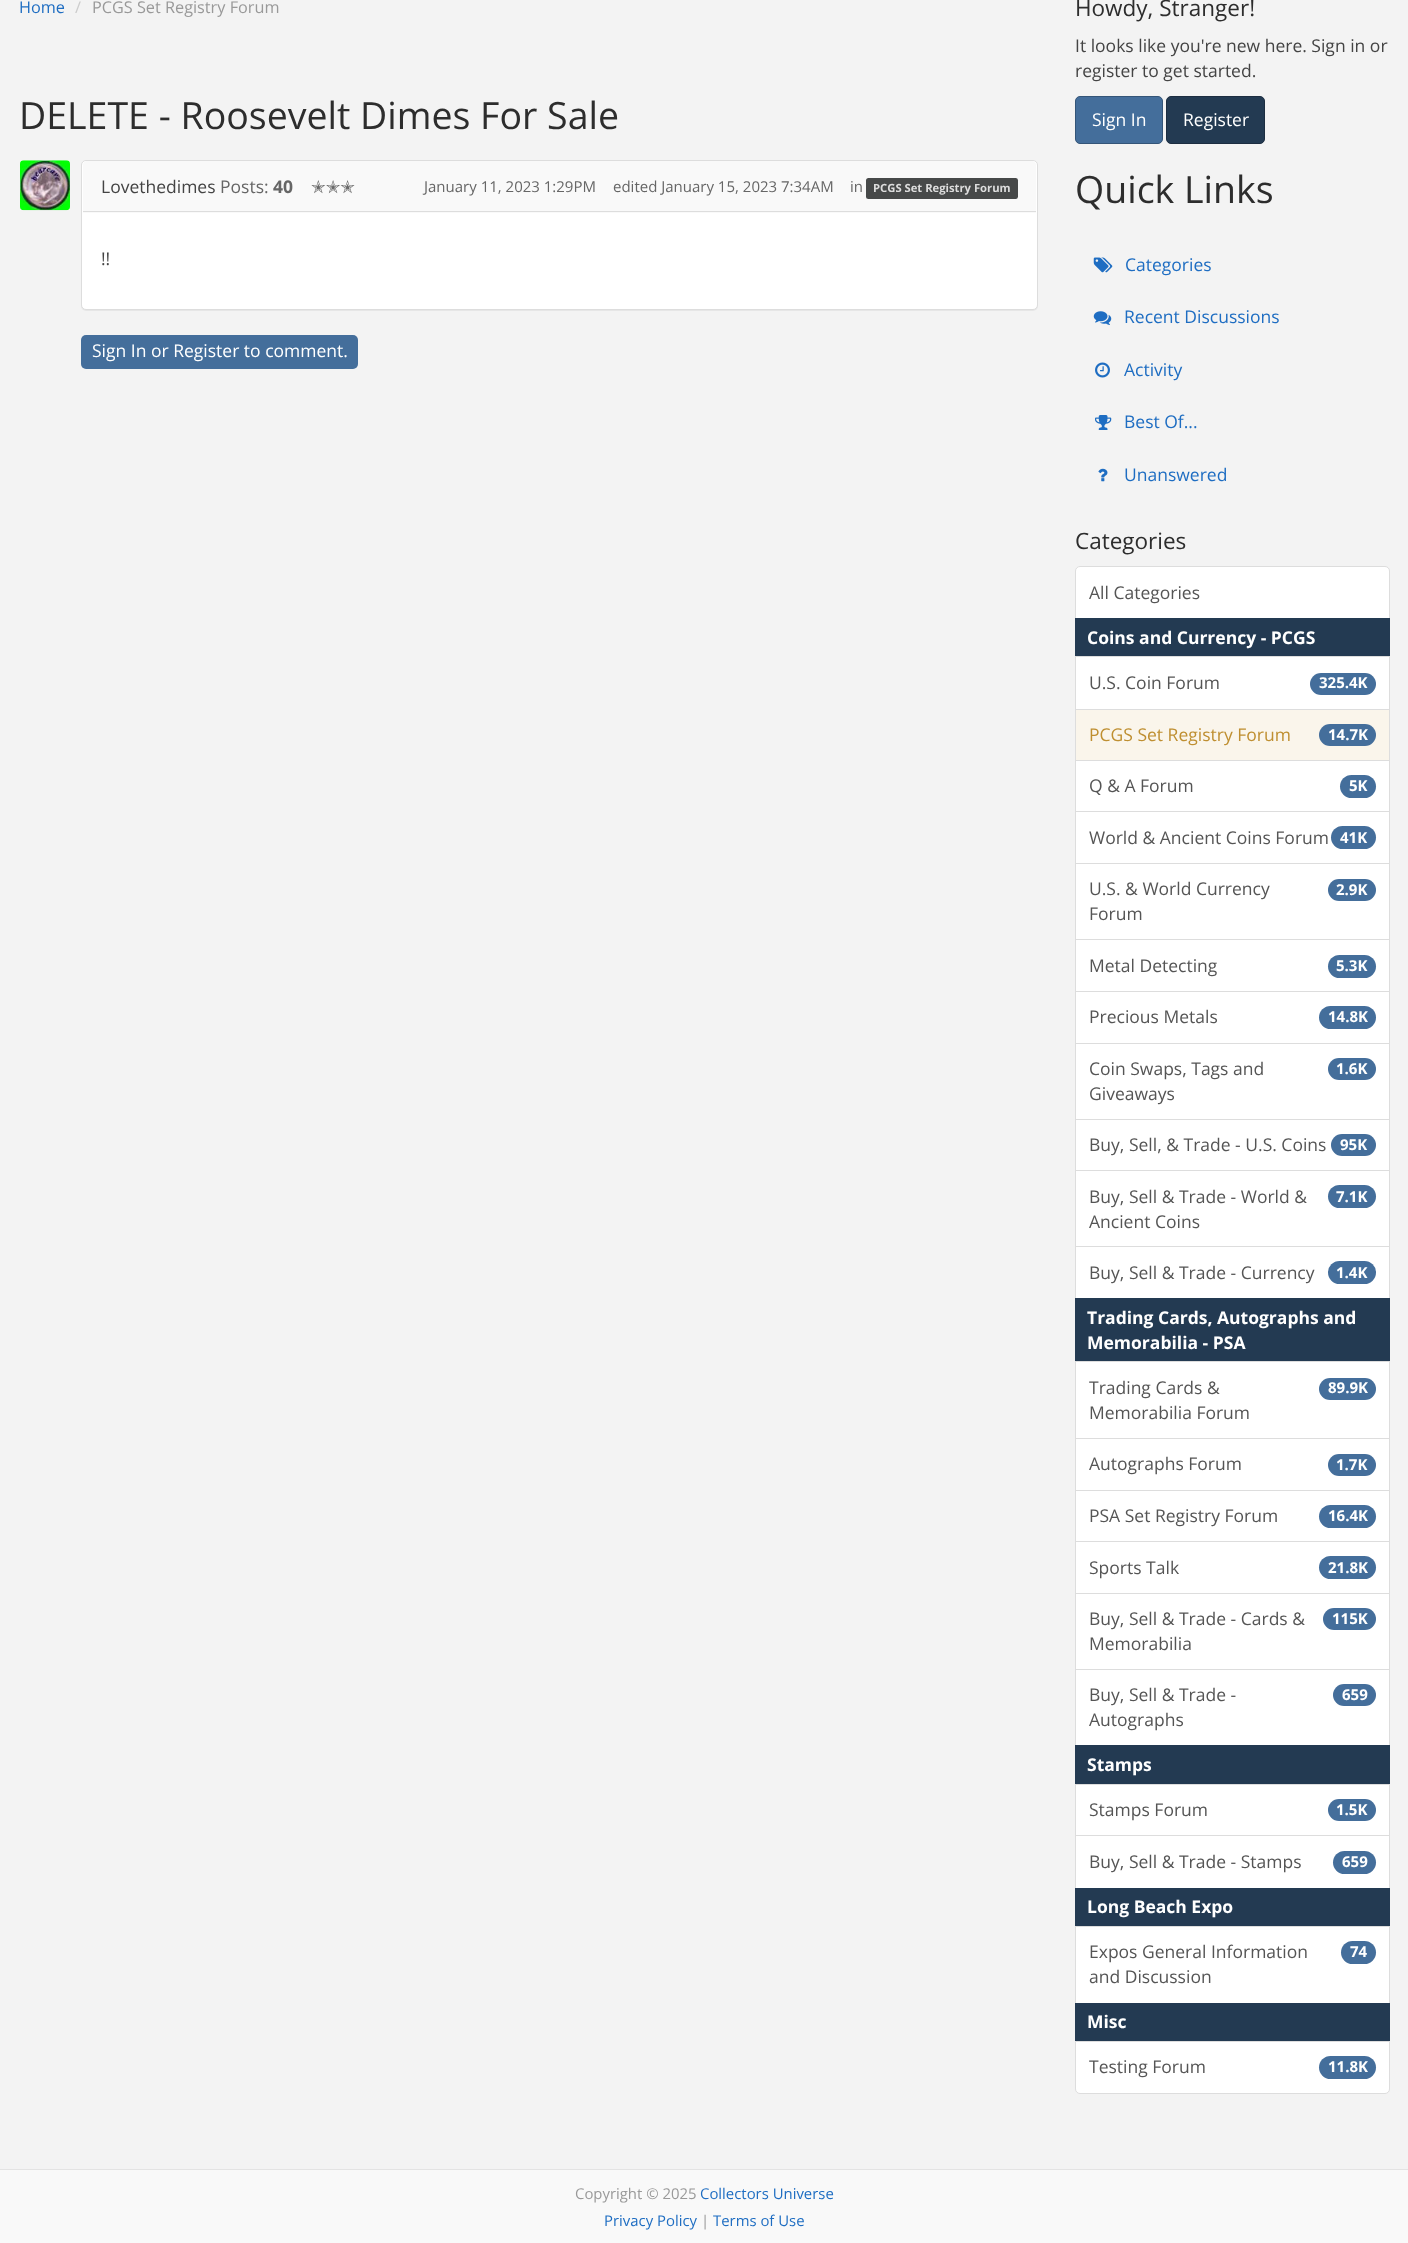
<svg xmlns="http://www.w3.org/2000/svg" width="1408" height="2243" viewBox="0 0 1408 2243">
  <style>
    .t1 { font: 16.25px Open Sans; fill: #1e6dc2; }
    .t2 { font: 16.25px Open Sans; fill: #ccc; }
    .t3 { font: 16.25px Open Sans; fill: #999; }
    .t4 { font: 37.5px Open Sans; fill: #2d2d2d; }
    .t5 { font: 17.5px Open Sans; fill: #444; }
    .t6 { font: 17.5px Open Sans; fill: #666; }
    .t7 { font: bold 17.5px Open Sans; fill: #666; }
    .t8 { font: 17.5px DejaVu Sans; fill: #666; }
    .t9 { font: 15px Open Sans; fill: #666; }
    .t10 { font: bold 11.25px Open Sans; fill: #ddd; }
    .t11 { font: 17.5px Open Sans; fill: #fff; }
    .t12 { font: 22.5px Open Sans; fill: #2d2d2d; }
    .t13 { font: 17.5px Open Sans; fill: #1e6dc2; }
    .t14 { font: 17.5px Open Sans; fill: #555; }
    .t15 { font: bold 17.5px Open Sans; fill: #fff; }
    .t16 { font: bold 15px Open Sans; fill: #fff; }
    .t17 { font: 17.5px Open Sans; fill: #bf8f31; }
    .t18 { font: 14.9px Open Sans; fill: #999; }
    .t19 { font: 14.9px Open Sans; fill: #1e6dc2; }
  </style>
  <rect width="100%" height="100%" fill="#f3f3f3"/>
  <text x="19" y="13" class="t1">Home</text>
  <text x="75" y="13" class="t2">/</text>
  <text x="92" y="13" class="t3">PCGS Set Registry Forum</text>
  <text x="19" y="129" class="t4">DELETE - Roosevelt Dimes For Sale</text>
  <rect x="81" y="161" width="957" height="150" rx="5" fill="#0000000d" filter="blur(0.5px)"/>
  <rect x="81.5" y="160.5" width="956" height="149" rx="4.5" fill="#fff" stroke="#ddd"/>
  <path d="M87 161H1032C1034 161 1036 163 1036 165V213H83V165C83 163 85 161 87 161Z" fill="#f9f9f9"/>
  <rect x="83" y="211" width="953" height="1" fill="#ddd"/>
  <image x="20" y="160" width="50" height="51" href="images/1.png"/>
  <text x="101" y="193" class="t5">Lovethedimes</text>
  <text x="220" y="193" class="t6">Posts:</text>
  <text x="273" y="193" class="t7">40</text>
  <text x="311" y="193" class="t8">✭✭✭</text>
  <text x="424" y="192" class="t9">January 11, 2023 1:29PM</text>
  <text x="613" y="192" class="t9">edited January 15, 2023 7:34AM</text>
  <text x="850" y="192" class="t9">in</text>
  <rect x="866" y="178" width="152" height="21" rx="2.5" fill="#474949"/>
  <text x="873" y="192" class="t10">PCGS Set Registry Forum</text>
  <text x="101" y="265" class="t5">!!</text>
  <rect x="81" y="335" width="277" height="34" rx="5" fill="#446e9b"/>
  <text x="92" y="357" class="t11">Sign In or Register to comment.</text>
  <text x="1075" y="16" class="t12">Howdy, Stranger!</text>
  <text x="1075" y="52" class="t5">It looks like you're new here. Sign in or</text>
  <text x="1075" y="77" class="t5">register to get started.</text>
  <rect x="1075.5" y="96.5" width="87" height="47" rx="4.5" fill="#446e9b" stroke="#345578"/>
  <text x="1092" y="126" class="t11">Sign In</text>
  <rect x="1166.5" y="96.5" width="98" height="47" rx="4.5" fill="#233a52" stroke="#1c2d40"/>
  <text x="1183" y="126" class="t11">Register</text>
  <text x="1075" y="203" class="t4">Quick Links</text>
  <image x="1093" y="257" width="20" height="16" href="images/2.png"/>
  <text x="1125" y="271" class="t13">Categories</text>
  <image x="1093" y="311" width="19" height="14" href="images/3.png"/>
  <text x="1124" y="323" class="t13">Recent Discussions</text>
  <image x="1095" y="362" width="15" height="16" href="images/4.png"/>
  <text x="1124" y="376" class="t13">Activity</text>
  <image x="1095" y="415" width="17" height="15" href="images/5.png"/>
  <text x="1124" y="428" class="t13">Best Of...</text>
  <image x="1098" y="468" width="10" height="14" href="images/6.png"/>
  <text x="1124" y="481" class="t13">Unanswered</text>
  <text x="1075" y="549" class="t12">Categories</text>
  <path d="M1080 566.5H1385C1387.5 566.5 1389.5 568.5 1389.5 571V618.5H1075.5V571C1075.5 568.5 1077.5 566.5 1080 566.5Z" fill="#fff" stroke="#ddd"/>
  <text x="1089" y="599" class="t14">All Categories</text>
  <rect x="1075" y="618" width="315" height="38" fill="#233a52"/>
  <text x="1087" y="644" class="t15">Coins and Currency - PCGS</text>
  <rect x="1075.5" y="656.5" width="314" height="53" fill="#fff" stroke="#ddd"/>
  <text x="1089" y="689" class="t14">U.S. Coin Forum</text>
  <rect x="1310" y="673" width="66" height="22" rx="11" fill="#446e9b"/>
  <text x="1319" y="688" class="t16">325.4K</text>
  <rect x="1076" y="761" width="313" height="50" fill="#fff"/>
  <rect x="1075.5" y="760.5" width="314" height="52" fill="none" stroke="#ddd"/>
  <rect x="1075.5" y="709.5" width="314" height="51" fill="#faf5eb" stroke="#ddd"/>
  <text x="1089" y="741" class="t17">PCGS Set Registry Forum</text>
  <rect x="1319" y="724" width="57" height="22" rx="11" fill="#446e9b"/>
  <text x="1328" y="740" class="t16">14.7K</text>
  <text x="1089" y="792" class="t14">Q &amp; A Forum</text>
  <rect x="1340" y="775" width="36" height="23" rx="11.5" fill="#446e9b"/>
  <text x="1349" y="791" class="t16">5K</text>
  <rect x="1075.5" y="811.5" width="314" height="52" fill="#fff" stroke="#ddd"/>
  <text x="1089" y="844" class="t14">World &amp; Ancient Coins Forum</text>
  <rect x="1331" y="826" width="45" height="23" rx="11.5" fill="#446e9b"/>
  <text x="1340" y="843" class="t16">41K</text>
  <rect x="1075.5" y="863.5" width="314" height="76" fill="#fff" stroke="#ddd"/>
  <text x="1089" y="895" class="t14">U.S. &amp; World Currency</text>
  <rect x="1328" y="879" width="48" height="22" rx="11" fill="#446e9b"/>
  <text x="1336" y="895" class="t16">2.9K</text>
  <text x="1089" y="920" class="t14">Forum</text>
  <rect x="1076" y="940" width="313" height="51" fill="#fff"/>
  <rect x="1075.5" y="939.5" width="314" height="53" fill="none" stroke="#ddd"/>
  <text x="1089" y="972" class="t14">Metal Detecting</text>
  <rect x="1328" y="955" width="48" height="23" rx="11.5" fill="#446e9b"/>
  <text x="1336" y="971" class="t16">5.3K</text>
  <rect x="1075.5" y="991.5" width="314" height="52" fill="#fff" stroke="#ddd"/>
  <text x="1089" y="1023" class="t14">Precious Metals</text>
  <rect x="1319" y="1006" width="57" height="23" rx="11.5" fill="#446e9b"/>
  <text x="1328" y="1022" class="t16">14.8K</text>
  <rect x="1075.5" y="1043.5" width="314" height="76" fill="#fff" stroke="#ddd"/>
  <text x="1089" y="1075" class="t14">Coin Swaps, Tags and</text>
  <rect x="1328" y="1058" width="48" height="22" rx="11" fill="#446e9b"/>
  <text x="1336" y="1074" class="t16">1.6K</text>
  <text x="1089" y="1100" class="t14">Giveaways</text>
  <rect x="1075.5" y="1119.5" width="314" height="51" fill="#fff" stroke="#ddd"/>
  <text x="1089" y="1151" class="t14">Buy, Sell, &amp; Trade - U.S. Coins</text>
  <rect x="1331" y="1134" width="45" height="22" rx="11" fill="#446e9b"/>
  <text x="1340" y="1150" class="t16">95K</text>
  <rect x="1076" y="1171" width="313" height="75" fill="#fff"/>
  <rect x="1075.5" y="1170.5" width="314" height="77" fill="none" stroke="#ddd"/>
  <text x="1089" y="1203" class="t14">Buy, Sell &amp; Trade - World &amp;</text>
  <rect x="1328" y="1185" width="48" height="23" rx="11.5" fill="#446e9b"/>
  <text x="1336" y="1202" class="t16">7.1K</text>
  <text x="1089" y="1228" class="t14">Ancient Coins</text>
  <rect x="1075.5" y="1246.5" width="314" height="52" fill="#fff" stroke="#ddd"/>
  <text x="1089" y="1279" class="t14">Buy, Sell &amp; Trade - Currency</text>
  <rect x="1328" y="1261" width="48" height="23" rx="11.5" fill="#446e9b"/>
  <text x="1336" y="1278" class="t16">1.4K</text>
  <rect x="1075" y="1298" width="315" height="63" fill="#233a52"/>
  <text x="1087" y="1324" class="t15">Trading Cards, Autographs and</text>
  <text x="1087" y="1349" class="t15">Memorabilia - PSA</text>
  <rect x="1075.5" y="1361.5" width="314" height="77" fill="#fff" stroke="#ddd"/>
  <text x="1089" y="1394" class="t14">Trading Cards &amp;</text>
  <rect x="1319" y="1378" width="57" height="22" rx="11" fill="#446e9b"/>
  <text x="1328" y="1393" class="t16">89.9K</text>
  <text x="1089" y="1419" class="t14">Memorabilia Forum</text>
  <rect x="1075.5" y="1438.5" width="314" height="52" fill="#fff" stroke="#ddd"/>
  <text x="1089" y="1470" class="t14">Autographs Forum</text>
  <rect x="1328" y="1454" width="48" height="22" rx="11" fill="#446e9b"/>
  <text x="1336" y="1470" class="t16">1.7K</text>
  <rect x="1076" y="1491" width="313" height="50" fill="#fff"/>
  <rect x="1075.5" y="1490.5" width="314" height="52" fill="none" stroke="#ddd"/>
  <text x="1089" y="1522" class="t14">PSA Set Registry Forum</text>
  <rect x="1319" y="1505" width="57" height="23" rx="11.5" fill="#446e9b"/>
  <text x="1328" y="1521" class="t16">16.4K</text>
  <rect x="1075.5" y="1541.5" width="314" height="52" fill="#fff" stroke="#ddd"/>
  <text x="1089" y="1574" class="t14">Sports Talk</text>
  <rect x="1319" y="1556" width="57" height="23" rx="11.5" fill="#446e9b"/>
  <text x="1328" y="1573" class="t16">21.8K</text>
  <rect x="1075.5" y="1593.5" width="314" height="76" fill="#fff" stroke="#ddd"/>
  <text x="1089" y="1625" class="t14">Buy, Sell &amp; Trade - Cards &amp;</text>
  <rect x="1323" y="1608" width="53" height="22" rx="11" fill="#446e9b"/>
  <text x="1332" y="1624" class="t16">115K</text>
  <text x="1089" y="1650" class="t14">Memorabilia</text>
  <rect x="1075.5" y="1669.5" width="314" height="76" fill="#fff" stroke="#ddd"/>
  <text x="1089" y="1701" class="t14">Buy, Sell &amp; Trade -</text>
  <rect x="1333" y="1684" width="43" height="22" rx="11" fill="#446e9b"/>
  <text x="1342" y="1700" class="t16">659</text>
  <text x="1089" y="1726" class="t14">Autographs</text>
  <rect x="1075" y="1745" width="315" height="39" fill="#233a52"/>
  <text x="1087" y="1771" class="t15">Stamps</text>
  <rect x="1075.5" y="1784.5" width="314" height="51" fill="#fff" stroke="#ddd"/>
  <text x="1089" y="1816" class="t14">Stamps Forum</text>
  <rect x="1328" y="1799" width="48" height="22" rx="11" fill="#446e9b"/>
  <text x="1336" y="1815" class="t16">1.5K</text>
  <rect x="1075.5" y="1835.5" width="314" height="53" fill="#fff" stroke="#ddd"/>
  <text x="1089" y="1868" class="t14">Buy, Sell &amp; Trade - Stamps</text>
  <rect x="1333" y="1851" width="43" height="23" rx="11.5" fill="#446e9b"/>
  <text x="1342" y="1867" class="t16">659</text>
  <rect x="1075" y="1888" width="315" height="38" fill="#233a52"/>
  <text x="1087" y="1913" class="t15">Long Beach Expo</text>
  <rect x="1075.5" y="1926.5" width="314" height="77" fill="#fff" stroke="#ddd"/>
  <text x="1089" y="1958" class="t14">Expos General Information</text>
  <rect x="1341" y="1941" width="35" height="23" rx="11.5" fill="#446e9b"/>
  <text x="1350" y="1957" class="t16">74</text>
  <text x="1089" y="1983" class="t14">and Discussion</text>
  <rect x="1075" y="2003" width="315" height="38" fill="#233a52"/>
  <text x="1087" y="2028" class="t15">Misc</text>
  <path d="M1075.5 2041.5H1389.5V2089C1389.5 2091.5 1387.5 2093.5 1385 2093.5H1080C1077.5 2093.5 1075.5 2091.5 1075.5 2089Z" fill="#fff" stroke="#ddd"/>
  <text x="1089" y="2073" class="t14">Testing Forum</text>
  <rect x="1319" y="2056" width="57" height="23" rx="11.5" fill="#446e9b"/>
  <text x="1328" y="2072" class="t16">11.8K</text>
  <rect x="0" y="2170" width="1408" height="73" fill="#f9f9f9"/>
  <rect x="0" y="2169" width="1408" height="1" fill="#e3e3e3"/>
  <text x="575" y="2199" class="t18">Copyright © 2025</text>
  <text x="700" y="2199" class="t19">Collectors Universe</text>
  <text x="604" y="2226" class="t19">Privacy Policy</text>
  <text x="701" y="2226" class="t18">|</text>
  <text x="713" y="2226" class="t19">Terms of Use</text>
</svg>
